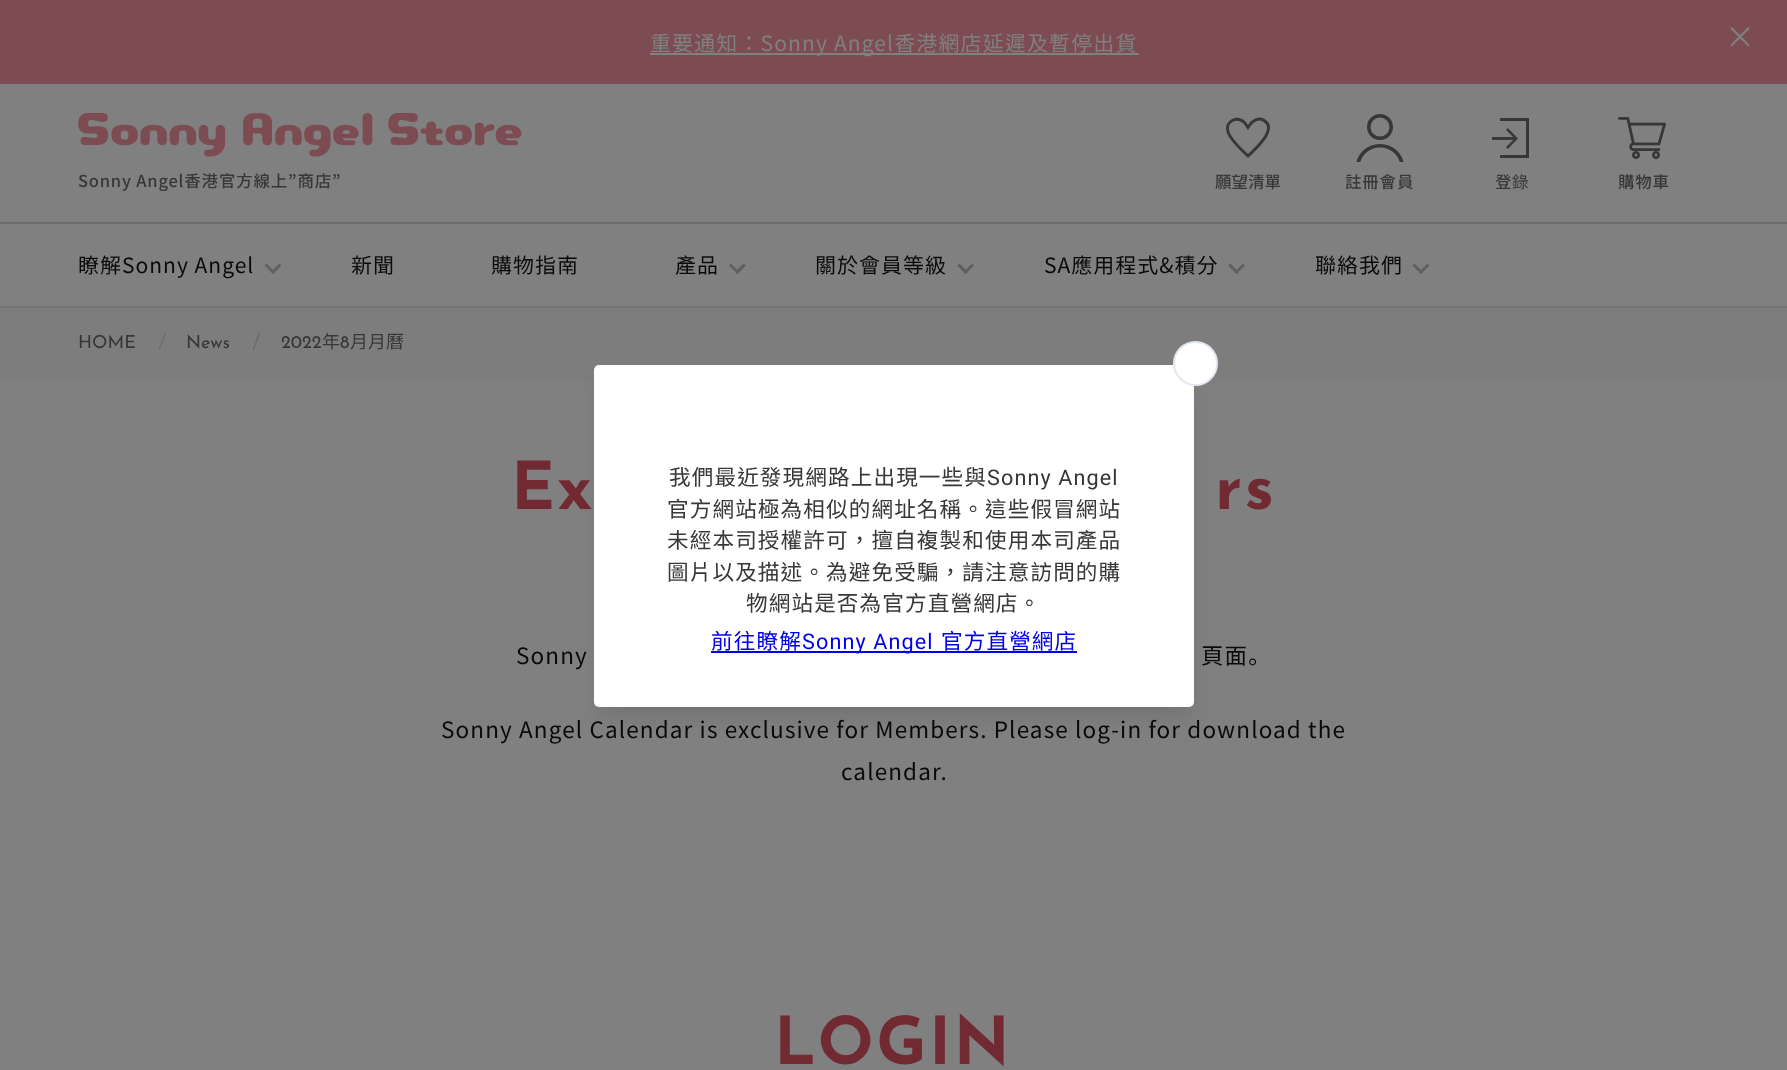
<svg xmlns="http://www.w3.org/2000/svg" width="1787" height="1070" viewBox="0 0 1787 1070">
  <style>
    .t1 { font: 21px Noto Sans JP; letter-spacing: 1.12px; fill: #808080; }
    .t2 { font: 30px Noto Sans JP; fill: #808080; }
    .t3 { font: 500 16.5px Noto Sans JP; letter-spacing: 0.8px; fill: #353738; }
    .t4 { font: 500 16.5px Noto Sans JP; fill: #353738; }
    .t5 { font: 16.5px Noto Sans CJK TC; letter-spacing: 0.8px; fill: #353738; }
    .t6 { font: 21px Noto Sans JP; letter-spacing: 1px; fill: #0a0a0a; }
    .t7 { font: 21px Noto Sans CJK TC; letter-spacing: 1px; fill: #0a0a0a; }
    .t8 { font: 18px Josefin Sans; fill: #353738; }
    .t9 { font: 18px Noto Sans JP; fill: #353738; }
    .t10 { font: 18px Noto Sans CJK TC; fill: #353738; }
    .t11 { font: bold 66px Josefin Sans; letter-spacing: 2.5px; fill: #712a32; }
    .t12 { font: 22.5px Noto Sans JP; letter-spacing: 1.12px; fill: #0a0a0a; }
    .t13 { font: 21.6px Noto Sans CJK TC; letter-spacing: 1.12px; fill: #353738; }
    .t14 { font: 21.6px Roboto; letter-spacing: 1.12px; fill: #353738; }
    .t15 { font: 21.6px Noto Sans CJK TC; letter-spacing: 1.12px; fill: #00e; }
    .t16 { font: 21.6px Roboto; letter-spacing: 1.12px; fill: #00e; }
  </style>
  <rect width="100%" height="100%" fill="#808080"/>
  <rect x="0" y="0" width="1787" height="84" fill="#7c4c52"/>
  <rect x="650" y="53" width="489" height="2" fill="#808080"/>
  <text x="650" y="51" class="t1">重要通知：Sonny Angel香港網店延遲及暫停出貨</text>
  <text x="1725" y="48" class="t2">×</text>
  <image x="78" y="113" width="444" height="44" href="images/1.png"/>
  <text x="78" y="187" class="t3">Sonny Angel香港官方線上”商店”</text>
  <path d="M1248 156C1254.5 149.5 1264.5 141.5 1267.5 132.5C1271.5 122.5 1261.5 115.5 1253 121.5C1250.5 123 1249.5 125.5 1248 127.5L1244.5 122.5C1237 115.5 1225 121 1228 131.5C1230 140 1241.5 149.5 1248 156Z" fill="none" stroke="#353738" stroke-width="2.9"/>
  <text x="1215" y="188" class="t4">願望清單</text>
  <image x="1356" y="114" width="48" height="48" href="images/2.png"/>
  <text x="1345" y="188" class="t3">註冊會員</text>
  <image x="1492" y="118" width="37" height="40" href="images/3.png"/>
  <text x="1495" y="188" class="t3">登</text>
  <text x="1512" y="188" class="t5">錄</text>
  <image x="1618" y="117" width="48" height="42" href="images/4.png"/>
  <text x="1618" y="188" class="t3">購物車</text>
  <rect x="0" y="222" width="1787" height="2" fill="#6e6e6e"/>
  <text x="78" y="273" class="t6">瞭解Sonny Angel</text>
  <path d="M279.5 263.5L281.5 265.5L273 274L271 272Z" fill="#606060"/>
  <path d="M266.5 263.5L275 272L273 274L264.5 265.5Z" fill="#606060"/>
  <text x="351" y="273" class="t6">新聞</text>
  <text x="491" y="273" class="t6">購物指南</text>
  <text x="675" y="273" class="t7">產</text>
  <text x="697" y="273" class="t6">品</text>
  <path d="M743.5 263.5L746 265.5L737.5 274L735 272Z" fill="#606060"/>
  <path d="M731 263.5L739.5 272L737.5 274L729 265.5Z" fill="#606060"/>
  <text x="815" y="273" class="t6">關於會員等級</text>
  <path d="M972 263.5L974 265.5L965.5 274L963.5 272Z" fill="#606060"/>
  <path d="M959.5 263.5L968 272L965.5 274L957 265.5Z" fill="#606060"/>
  <text x="1044" y="273" class="t6">SA應用程式&amp;積分</text>
  <path d="M1243 263.5L1245 265.5L1236.5 274L1234.5 272Z" fill="#606060"/>
  <path d="M1230.5 263.5L1239 272L1236.5 274L1228 265.5Z" fill="#606060"/>
  <text x="1315" y="273" class="t6">聯絡我們</text>
  <path d="M1427.5 263.5L1429.5 265.5L1421 274L1419 272Z" fill="#606060"/>
  <path d="M1414.5 263.5L1423 272L1421 274L1412.5 265.5Z" fill="#606060"/>
  <rect x="0" y="308" width="1787" height="73" fill="#7d7d7d"/>
  <rect x="0" y="306" width="1787" height="2" fill="#737373"/>
  <text x="78" y="348" class="t8">HOME</text>
  <path d="M164.5 333L166 333.5L159.5 350.5L158.5 350Z" fill="#6e6e6e"/>
  <text x="186" y="348" class="t8">News</text>
  <path d="M258.5 333L260 333.5L254 350.5L252.5 350Z" fill="#6e6e6e"/>
  <text x="281" y="348" class="t8">2022</text>
  <text x="322" y="348" class="t9">年</text>
  <text x="340" y="348" class="t8">8</text>
  <text x="350" y="348" class="t9">月月</text>
  <text x="386" y="348" class="t10">曆</text>
  <text x="511" y="509" class="t11">Ex</text>
  <text x="1215" y="509" class="t11">rs</text>
  <text x="516" y="664" class="t12">Sonny</text>
  <text x="1201" y="664" class="t12">頁面。</text>
  <text x="441" y="738" class="t12">Sonny Angel Calendar is exclusive for Members. Please log-in for download the</text>
  <text x="841" y="780" class="t12">calendar.</text>
  <text x="774" y="1064" class="t11">LOGIN</text>
  <rect x="599" y="384" width="591" height="333" fill="#0000001a" filter="blur(11px)"/>
  <rect x="594" y="365" width="600" height="342" rx="5" fill="#fff"/>
  <circle cx="1195.5" cy="363.5" r="21.5" fill="#fff" stroke="#e2e8f0" stroke-width="2"/>
  <text x="669" y="485" class="t13">我們最近發現網路上出現一些與</text>
  <text x="987" y="485" class="t14">Sonny Angel</text>
  <text x="667" y="517" class="t13">官方網站極為相似的網址名稱。這些假冒網站</text>
  <text x="667" y="548" class="t13">未經本司授權許可，擅自複製和使用本司產品</text>
  <text x="667" y="580" class="t13">圖片以及描述。為避免受騙，請注意訪問的購</text>
  <text x="746" y="611" class="t13">物網站是否為官方直營網店。</text>
  <text x="711" y="649" class="t15">前往瞭解</text>
  <rect x="711" y="651" width="366" height="2" fill="#00e"/>
  <text x="802" y="649" class="t16">Sonny Angel</text>
  <text x="941" y="649" class="t15">官方直營網店</text>
</svg>
